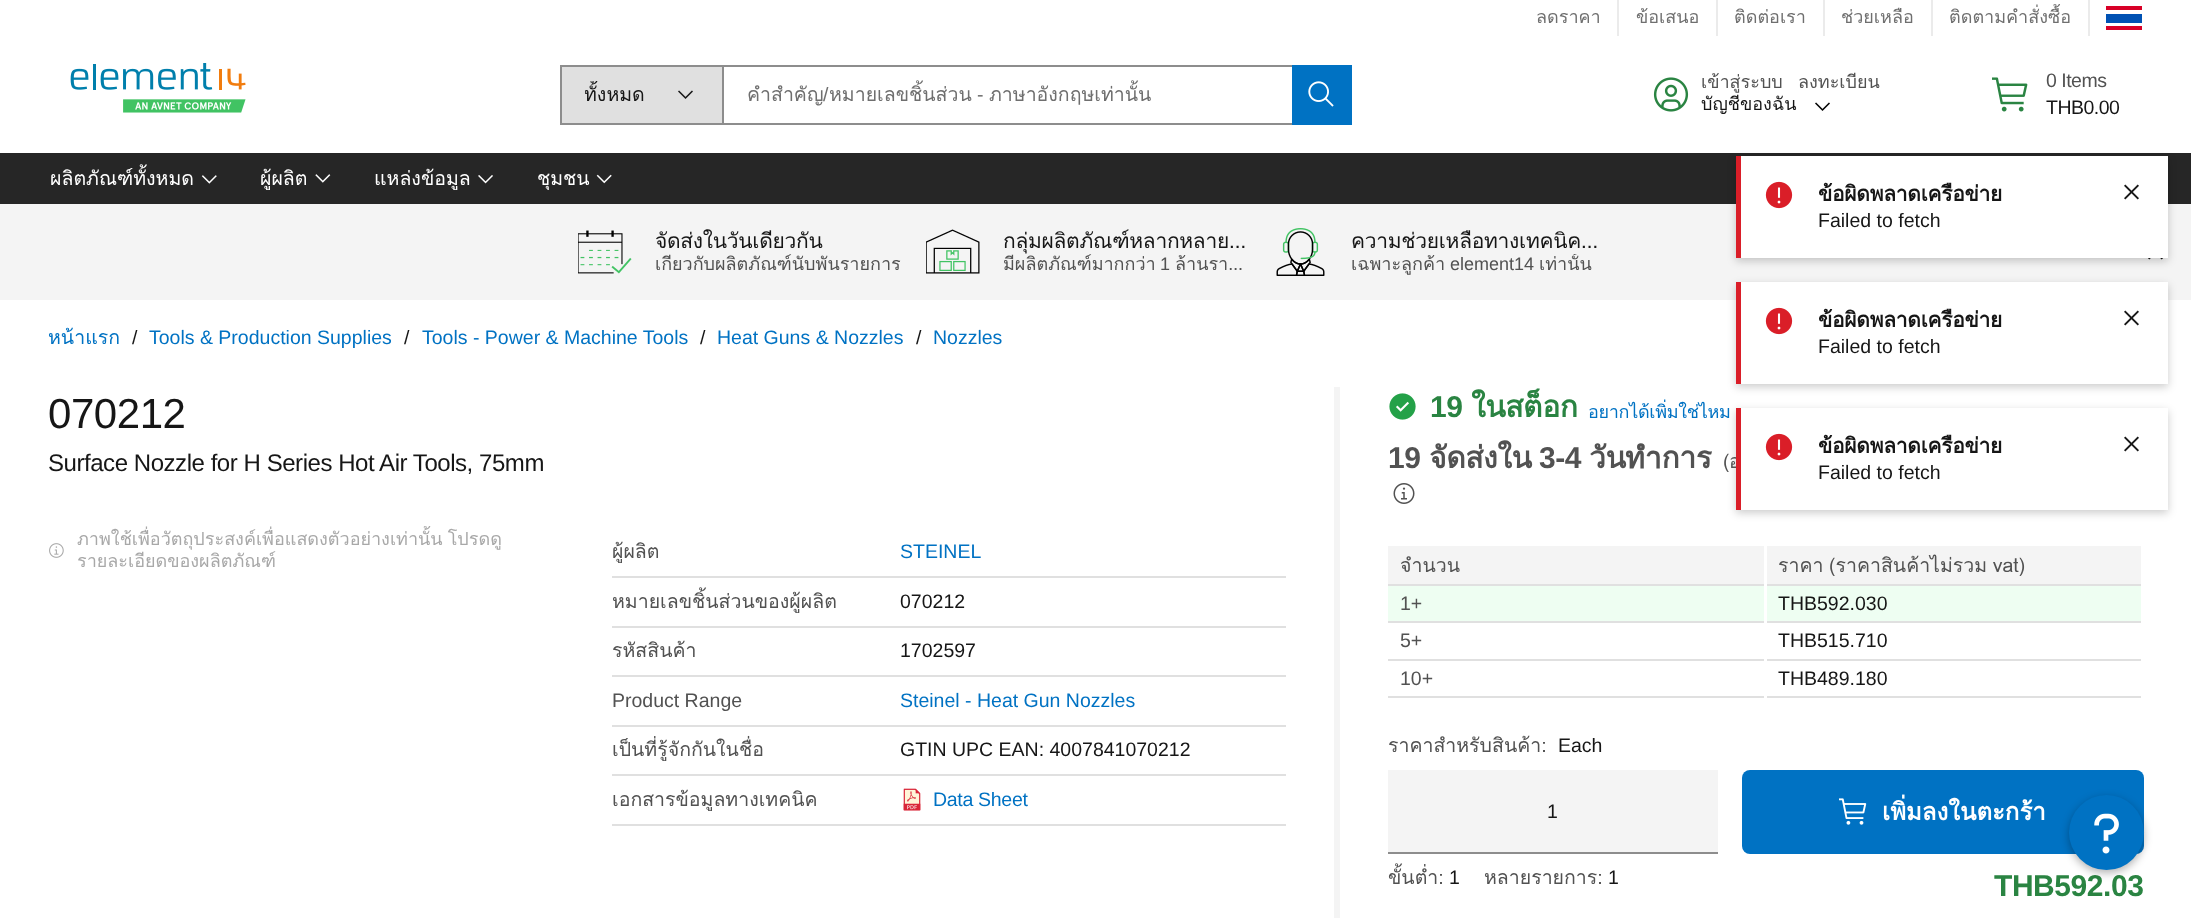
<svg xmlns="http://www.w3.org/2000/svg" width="2191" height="918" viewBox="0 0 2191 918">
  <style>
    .t1 { font: 18px Loma; fill: #6f6f6f; }
    .t2 { font: 19.5px Loma; fill: #161616; }
    .t3 { font: 19.5px Loma; fill: #6f6f6f; }
    .t4 { font: 19.5px Liberation Sans; fill: #6f6f6f; }
    .t5 { font: 18px Loma; fill: #525252; }
    .t6 { font: 18px Loma; fill: #161616; }
    .t7 { font: 19.5px Liberation Sans; letter-spacing: -0.5px; fill: #525252; }
    .t8 { font: 19.5px Liberation Sans; letter-spacing: -0.5px; fill: #161616; }
    .t9 { font: 19.5px Loma; fill: #fff; }
    .t10 { font: bold 21px Loma; letter-spacing: -0.3px; fill: #161616; }
    .t11 { font: 19.5px Liberation Sans; fill: #161616; }
    .t12 { font: 19.5px Loma; letter-spacing: -0.45px; fill: #525252; }
    .t13 { font: 21px Loma; letter-spacing: -0.3px; fill: #161616; }
    .t14 { font: 18px Liberation Sans; fill: #525252; }
    .t15 { font: 19.5px Loma; fill: #0072c3; }
    .t16 { font: 19.5px Liberation Sans; fill: #0072c3; }
    .t17 { font: 42px Liberation Sans; letter-spacing: -0.45px; fill: #161616; }
    .t18 { font: 24px Liberation Sans; letter-spacing: -0.45px; fill: #161616; }
    .t19 { font: 18px Loma; fill: #a8a8a8; }
    .t20 { font: 19.5px Loma; fill: #525252; }
    .t21 { font: 19.5px Liberation Sans; fill: #525252; }
    .t22 { font: 19.5px Liberation Sans; letter-spacing: -0.3px; fill: #0072c3; }
    .t23 { font: bold 30px Liberation Sans; letter-spacing: -0.45px; fill: #2a8442; }
    .t24 { font: bold 30px Loma; letter-spacing: -0.45px; fill: #2a8442; }
    .t25 { font: 18px Loma; letter-spacing: -0.3px; fill: #0072c3; }
    .t26 { font: bold 30px Liberation Sans; letter-spacing: -0.45px; fill: #525252; }
    .t27 { font: bold 30px Loma; letter-spacing: -0.45px; fill: #525252; }
    .t28 { font: bold 24px Loma; fill: #fff; }
  </style>
  <defs>
    <clipPath id="clip1"><rect x="585" y="81" width="65" height="27"/></clipPath>
    <clipPath id="clip2"><rect x="747" y="80" width="485" height="31"/></clipPath>
    <clipPath id="clip3"><rect x="656" y="228" width="246" height="26"/></clipPath>
    <clipPath id="clip4"><rect x="656" y="254" width="246" height="22"/></clipPath>
    <clipPath id="clip5"><rect x="1004" y="254" width="246" height="22"/></clipPath>
    <clipPath id="clip6"><rect x="1352" y="254" width="246" height="22"/></clipPath>
    <clipPath id="clip7"><rect x="1881" y="791" width="165" height="43"/></clipPath>
  </defs>
  <rect width="100%" height="100%" fill="#fff"/>
  <rect x="1617" y="0" width="2" height="36" fill="#ebebeb"/>
  <text x="1536" y="23" class="t1">ลดราคา</text>
  <rect x="1716" y="0" width="2" height="36" fill="#ebebeb"/>
  <text x="1636" y="23" class="t1">ข้อเสนอ</text>
  <rect x="1823" y="0" width="2" height="36" fill="#ebebeb"/>
  <text x="1734" y="23" class="t1">ติดต่อเรา</text>
  <rect x="1931" y="0" width="2" height="36" fill="#ebebeb"/>
  <text x="1841" y="23" class="t1">ช่วยเหลือ</text>
  <rect x="2088" y="0" width="2" height="36" fill="#ebebeb"/>
  <text x="1949" y="23" class="t1">ติดตามคำสั่งซื้อ</text>
  <rect x="2106" y="14" width="36" height="9" fill="#0052b4"/>
  <path d="M2106 6H2142V10H2106ZM2106 26H2142V30H2106Z" fill="#d80027"/>
  <image x="70" y="63" width="176" height="50" href="images/1.png"/>
  <rect x="562" y="67" width="160" height="56" fill="#e0e0e0"/>
  <rect x="560" y="65" width="732" height="2" fill="#8d8d8d"/>
  <rect x="560" y="123" width="732" height="2" fill="#8d8d8d"/>
  <rect x="560" y="65" width="2" height="60" fill="#8d8d8d"/>
  <g clip-path="url(#clip1)">
    <text x="584" y="101" class="t2">ทั้งหมด</text>
  </g>
  <image x="678" y="90" width="15" height="9" href="images/2.png"/>
  <rect x="722" y="65" width="2" height="60" fill="#8d8d8d"/>
  <g clip-path="url(#clip2)">
    <text x="747" y="101" class="t3">คำสำคัญ</text>
  </g>
  <text x="823" y="101" class="t4">/</text>
  <text x="829" y="101" class="t3">หมายเลขชิ้นส่วน</text>
  <text x="977" y="101" class="t4">-</text>
  <text x="989" y="101" class="t3">ภาษาอังกฤษเท่านั้น</text>
  <rect x="1292" y="65" width="60" height="60" fill="#0072c3"/>
  <image x="1308" y="81" width="26" height="26" href="images/3.png"/>
  <image x="1653" y="77" width="36" height="35" href="images/4.png"/>
  <text x="1701" y="88" class="t5">เข้าสู่ระบบ</text>
  <text x="1798" y="88" class="t5">ลงทะเบียน</text>
  <text x="1701" y="110" class="t6">บัญชีของฉัน</text>
  <image x="1815" y="102" width="15" height="9" href="images/5.png"/>
  <image x="1992" y="77" width="36" height="35" href="images/6.png"/>
  <text x="2046" y="87" class="t7">0 Items</text>
  <text x="2046" y="114" class="t8">THB0.00</text>
  <rect x="0" y="153" width="2191" height="51" fill="#262626"/>
  <text x="50" y="185" class="t9">ผลิตภัณฑ์ทั้งหมด</text>
  <image x="201" y="175" width="16" height="9" href="images/7.png"/>
  <text x="260" y="185" class="t9">ผู้ผลิต</text>
  <image x="315" y="174" width="16" height="9" href="images/8.png"/>
  <text x="374" y="185" class="t9">แหล่งข้อมูล</text>
  <image x="478" y="175" width="15" height="9" href="images/9.png"/>
  <text x="537" y="185" class="t9">ชุมชน</text>
  <image x="596" y="174" width="16" height="10" href="images/10.png"/>
  <rect x="0" y="204" width="2191" height="96" fill="#f4f4f4"/>
  <image x="2148" y="258" width="15" height="2" href="images/16.png"/>
  <rect x="1736" y="159" width="432" height="102" fill="#00000033" filter="blur(4.5px)"/>
  <rect x="1741" y="156" width="427" height="102" fill="#fff"/>
  <rect x="1736" y="156" width="5" height="102" fill="#da1e28"/>
  <image x="1765" y="181" width="28" height="28" href="images/11.png"/>
  <text x="1818" y="201" class="t10">ข้อผิดพลาดเครือข่าย</text>
  <text x="1818" y="227" class="t11">Failed to fetch</text>
  <image x="2124" y="184" width="15" height="16" href="images/12.png"/>
  <rect x="1736" y="285" width="432" height="102" fill="#00000033" filter="blur(4.5px)"/>
  <rect x="1741" y="282" width="427" height="102" fill="#fff"/>
  <rect x="1736" y="282" width="5" height="102" fill="#da1e28"/>
  <image x="1765" y="307" width="28" height="28" href="images/11.png"/>
  <text x="1818" y="327" class="t10">ข้อผิดพลาดเครือข่าย</text>
  <text x="1818" y="353" class="t11">Failed to fetch</text>
  <image x="2124" y="310" width="15" height="16" href="images/12.png"/>
  <rect x="1736" y="411" width="432" height="102" fill="#00000033" filter="blur(4.5px)"/>
  <rect x="1741" y="408" width="427" height="102" fill="#fff"/>
  <text x="1723" y="468" class="t12">(อ</text>
  <rect x="1736" y="408" width="5" height="102" fill="#da1e28"/>
  <image x="1765" y="433" width="28" height="28" href="images/11.png"/>
  <text x="1818" y="453" class="t10">ข้อผิดพลาดเครือข่าย</text>
  <text x="1818" y="479" class="t11">Failed to fetch</text>
  <image x="2124" y="436" width="15" height="16" href="images/12.png"/>
  <image x="578" y="230" width="54" height="44" href="images/13.png"/>
  <g clip-path="url(#clip3)">
    <text x="655" y="248" class="t13">จัดส่งในวันเดียวกัน</text>
  </g>
  <g clip-path="url(#clip4)">
    <text x="655" y="270" class="t5">เกี่ยวกับผลิตภัณฑ์นับพันรายการ</text>
  </g>
  <image x="926" y="229" width="54" height="45" href="images/14.png"/>
  <text x="1003" y="248" class="t13">กลุ่มผลิตภัณฑ์หลากหลาย…</text>
  <g clip-path="url(#clip5)">
    <text x="1003" y="270" class="t5">มีผลิตภัณฑ์มากกว่า</text>
  </g>
  <text x="1160" y="270" class="t14">1</text>
  <text x="1175" y="270" class="t5">ล้านรา…</text>
  <image x="1276" y="228" width="49" height="48" href="images/15.png"/>
  <text x="1351" y="248" class="t13">ความช่วยเหลือทางเทคนิค…</text>
  <text x="1351" y="270" class="t5">เฉพาะลูกค้า</text>
  <text x="1450" y="270" class="t14">element14</text>
  <g clip-path="url(#clip6)">
    <text x="1539" y="270" class="t5">เท่านั้น</text>
  </g>
  <text x="48" y="344" class="t15">หน้าแรก</text>
  <text x="132" y="344" class="t11">/</text>
  <text x="149" y="344" class="t16">Tools &amp; Production Supplies</text>
  <text x="404" y="344" class="t11">/</text>
  <text x="422" y="344" class="t16">Tools - Power &amp; Machine Tools</text>
  <text x="700" y="344" class="t11">/</text>
  <text x="717" y="344" class="t16">Heat Guns &amp; Nozzles</text>
  <text x="916" y="344" class="t11">/</text>
  <text x="933" y="344" class="t16">Nozzles</text>
  <rect x="1334" y="387" width="6" height="531" fill="#f4f4f4"/>
  <text x="48" y="428" class="t17">070212</text>
  <text x="48" y="471" class="t18">Surface Nozzle for H Series Hot Air Tools, 75mm</text>
  <image x="49" y="543" width="15" height="15" href="images/17.png"/>
  <text x="77" y="545" word-spacing="-1" class="t19">ภาพใช้เพื่อวัตถุประสงค์เพื่อแสดงตัวอย่างเท่านั้น โปรดดู</text>
  <text x="77" y="567" class="t19">รายละเอียดของผลิตภัณฑ์</text>
  <rect x="612" y="576" width="674" height="2" fill="#e0e0e0"/>
  <text x="612" y="558" class="t20">ผู้ผลิต</text>
  <text x="900" y="558" class="t16">STEINEL</text>
  <rect x="612" y="626" width="674" height="2" fill="#e0e0e0"/>
  <text x="612" y="608" class="t20">หมายเลขชิ้นส่วนของผู้ผลิต</text>
  <text x="900" y="608" class="t11">070212</text>
  <rect x="612" y="675" width="674" height="2" fill="#e0e0e0"/>
  <text x="612" y="657" class="t20">รหัสสินค้า</text>
  <text x="900" y="657" class="t11">1702597</text>
  <rect x="612" y="725" width="674" height="2" fill="#e0e0e0"/>
  <text x="612" y="707" class="t21">Product Range</text>
  <text x="900" y="707" class="t16">Steinel - Heat Gun Nozzles</text>
  <rect x="612" y="774" width="674" height="2" fill="#e0e0e0"/>
  <text x="612" y="756" class="t20">เป็นที่รู้จักกันในชื่อ</text>
  <text x="900" y="756" class="t11">GTIN UPC EAN: 4007841070212</text>
  <rect x="612" y="824" width="674" height="2" fill="#e0e0e0"/>
  <text x="612" y="806" class="t20">เอกสารข้อมูลทางเทคนิค</text>
  <image x="903" y="788" width="18" height="23" href="images/18.png"/>
  <text x="933" y="806" class="t22">Data Sheet</text>
  <image x="1389" y="393" width="27" height="27" href="images/19.png"/>
  <text x="1430" y="417" class="t23">19</text>
  <text x="1471" y="417" class="t24">ในสต็อก</text>
  <text x="1588" y="418" class="t25">อยากได้เพิ่มใช่ไหม</text>
  <text x="1388" y="468" class="t26">19</text>
  <text x="1429" y="468" class="t27">จัดส่งใน</text>
  <text x="1539" y="468" class="t26">3-4</text>
  <text x="1589" y="468" class="t27">วันทำการ</text>
  <image x="1393" y="483" width="22" height="21" href="images/20.png"/>
  <rect x="1388" y="548" width="376" height="36" fill="#f4f4f4"/>
  <rect x="1388" y="546" width="756" height="2" fill="#f4f4f4"/>
  <rect x="1764" y="546" width="3" height="2" fill="#fff"/>
  <text x="1400" y="572" class="t20">จำนวน</text>
  <rect x="1767" y="548" width="374" height="36" fill="#f4f4f4"/>
  <rect x="1388" y="584" width="756" height="2" fill="#e0e0e0"/>
  <rect x="2141" y="546" width="3" height="2" fill="#fff"/>
  <text x="1778" y="572" word-spacing="-1" class="t20">ราคา (ราคาสินค้าไม่รวม vat)</text>
  <rect x="1388" y="586" width="376" height="35" fill="#eefef2"/>
  <rect x="1764" y="584" width="3" height="2" fill="#fff"/>
  <text x="1400" y="610" class="t21">1+</text>
  <rect x="1767" y="586" width="374" height="35" fill="#eefef2"/>
  <rect x="1388" y="621" width="756" height="2" fill="#e0e0e0"/>
  <rect x="2141" y="584" width="3" height="2" fill="#fff"/>
  <text x="1778" y="610" class="t11">THB592.030</text>
  <rect x="1764" y="621" width="3" height="2" fill="#fff"/>
  <text x="1400" y="647" class="t21">5+</text>
  <rect x="1388" y="659" width="756" height="2" fill="#e0e0e0"/>
  <rect x="2141" y="621" width="3" height="2" fill="#fff"/>
  <text x="1778" y="647" class="t11">THB515.710</text>
  <rect x="1388" y="696" width="756" height="2" fill="#e0e0e0"/>
  <rect x="1764" y="659" width="3" height="40" fill="#fff"/>
  <text x="1400" y="685" class="t21">10+</text>
  <rect x="2141" y="659" width="3" height="40" fill="#fff"/>
  <text x="1778" y="685" class="t11">THB489.180</text>
  <text x="1388" y="752" class="t20">ราคาสำหรับสินค้า:</text>
  <text x="1558" y="752" class="t11">Each</text>
  <rect x="1388" y="770" width="330" height="82" fill="#f4f4f4"/>
  <rect x="1388" y="852" width="330" height="2" fill="#8d8d8d"/>
  <text x="1547" y="818" class="t11">1</text>
  <rect x="1742" y="770" width="402" height="84" rx="8" fill="#0072c3"/>
  <image x="1839" y="798" width="28" height="27" href="images/21.png"/>
  <g clip-path="url(#clip7)">
    <text x="1882" y="820" class="t28">เพิ่มลงในตะกร้า</text>
  </g>
  <text x="1388" y="884" class="t20">ขั้นต่ำ:</text>
  <text x="1449" y="884" class="t11">1</text>
  <text x="1484" y="884" class="t20">หลายรายการ:</text>
  <text x="1608" y="884" class="t11">1</text>
  <text x="1994" y="896" class="t23">THB592.03</text>
  <rect x="2069" y="798" width="75" height="75" rx="37.5" fill="#0000004d" filter="blur(4.5px)"/>
  <circle cx="2106.5" cy="832.5" r="37.5" fill="#0072c3"/>
  <image x="2094" y="813" width="25" height="41" href="images/22.png"/>
</svg>
